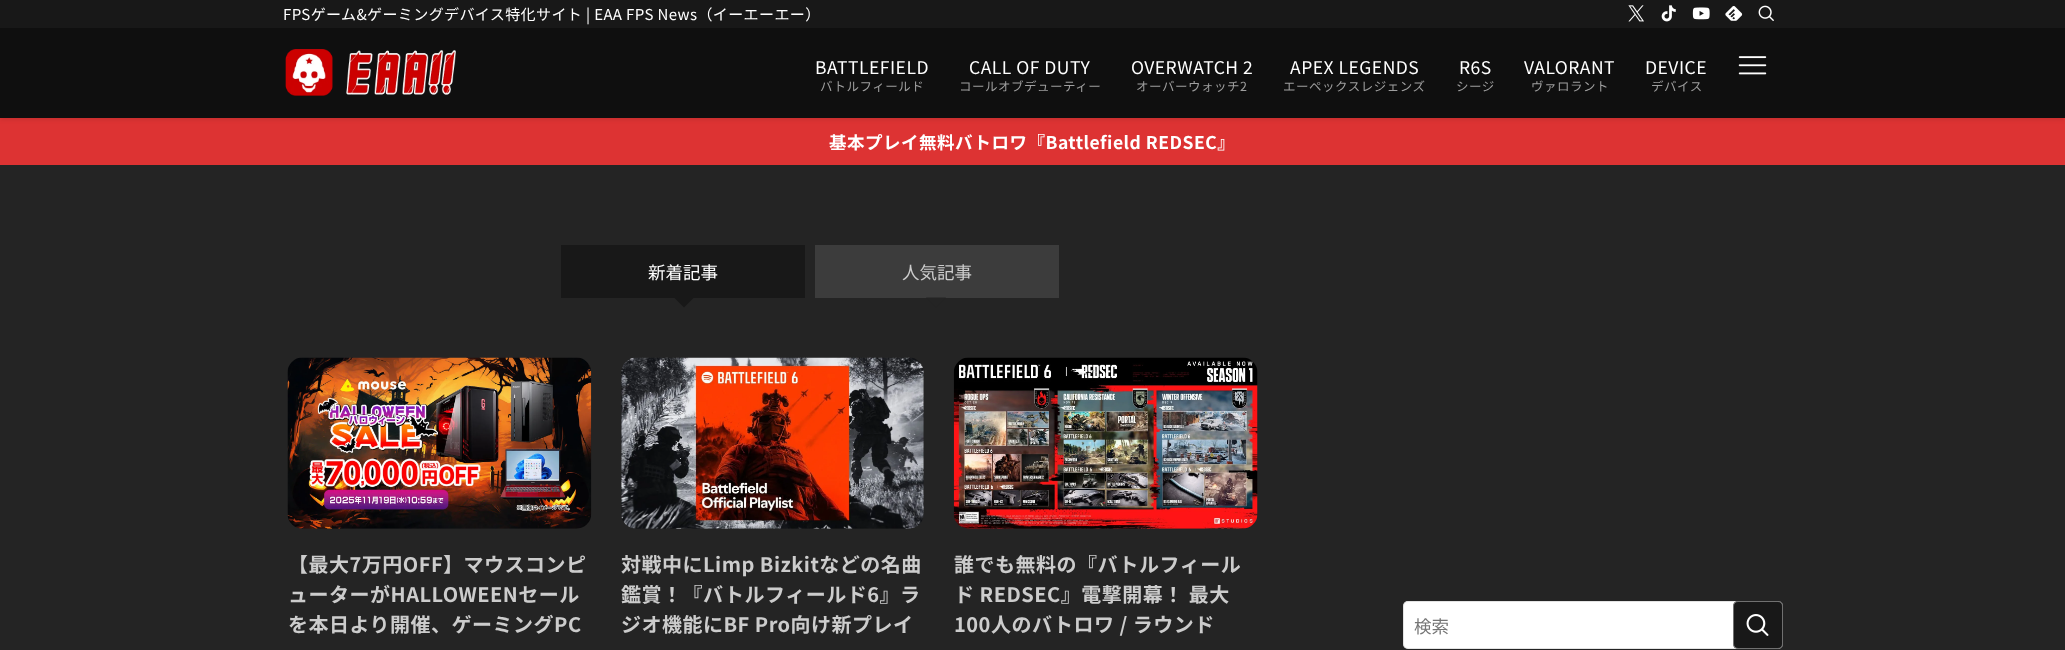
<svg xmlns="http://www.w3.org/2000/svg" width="2065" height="650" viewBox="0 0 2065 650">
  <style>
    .t1 { font: 15px Noto Sans JP; letter-spacing: 0.4px; fill: #fff; }
    .t2 { font: 17.5px Noto Sans JP; letter-spacing: 0.5px; fill: #fff; }
    .t3 { font: 12.5px Noto Sans JP; letter-spacing: 0.5px; fill: #9f9f9f; }
    .t4 { font: bold 17.5px Noto Sans JP; letter-spacing: 0.5px; fill: #fff; }
    .t5 { font: 17.5px Noto Sans JP; fill: #fff; }
    .t6 { font: 17.5px Noto Sans JP; fill: #ccc; }
    .t7 { font: bold 20px Noto Sans JP; letter-spacing: 0.5px; fill: #ccc; }
    .t8 { font: 17.5px Noto Sans JP; fill: #757575; }
  </style>
  <rect width="100%" height="100%" fill="#242424"/>
  <rect x="0" y="118" width="2065" height="47" fill="#d33"/>
  <rect x="0" y="1" width="2065" height="118" fill="#0000001f" filter="blur(2.5px)"/>
  <rect x="0" y="28" width="2065" height="90" fill="#0f0f0f"/>
  <rect x="0" y="0" width="2065" height="28" fill="#181818"/>
  <text x="283" y="20" class="t1">FPSゲーム&amp;ゲーミングデバイス特化サイト | EAA FPS News（イーエーエー）</text>
  <image x="1628" y="5" width="16" height="17" href="images/1.png"/>
  <image x="1661" y="5" width="15" height="17" href="images/2.png"/>
  <image x="1692" y="7" width="18" height="13" href="images/3.png"/>
  <image x="1725" y="6" width="18" height="15" href="images/4.png"/>
  <image x="1758" y="5" width="16" height="16" href="images/5.png"/>
  <image x="285" y="49" width="171" height="47" href="images/6.png"/>
  <text x="815" y="74" class="t2">BATTLEFIELD</text>
  <text x="820" y="91" class="t3">バトルフィールド</text>
  <text x="969" y="74" class="t2">CALL OF DUTY</text>
  <text x="959" y="91" class="t3">コールオブデューティー</text>
  <text x="1131" y="74" class="t2">OVERWATCH 2</text>
  <text x="1136" y="91" class="t3">オーバーウォッチ2</text>
  <text x="1290" y="74" class="t2">APEX LEGENDS</text>
  <text x="1283" y="91" class="t3">エーペックスレジェンズ</text>
  <text x="1459" y="74" class="t2">R6S</text>
  <text x="1456" y="91" class="t3">シージ</text>
  <text x="1524" y="74" class="t2">VALORANT</text>
  <text x="1531" y="91" class="t3">ヴァロラント</text>
  <text x="1645" y="74" class="t2">DEVICE</text>
  <text x="1651" y="91" class="t3">デバイス</text>
  <image x="1738" y="56" width="29" height="19" href="images/7.png"/>
  <text x="829" y="149" class="t4">基本プレイ無料バトロワ『Battlefield REDSEC』</text>
  <rect x="561" y="245" width="244" height="53" fill="#181818"/>
  <text x="648" y="279" class="t5">新着記事</text>
  <path d="M674 297.5H694L684 307.5Z" fill="#181818"/>
  <rect x="815" y="245" width="244" height="53" fill="#3c3c3c"/>
  <text x="902" y="279" class="t6">人気記事</text>
  <path d="M926 297.5H946L936 307.5Z" fill="#242424"/>
  <image x="287" y="357" width="305" height="172" href="images/8.png"/>
  <text x="288" y="572" class="t7">【最大7万円OFF】マウスコンピ</text>
  <text x="288" y="602" class="t7">ューターがHALLOWEENセール</text>
  <text x="288" y="632" class="t7">を本日より開催、ゲーミングPC</text>
  <image x="621" y="357" width="303" height="172" href="images/9.png"/>
  <text x="621" y="572" class="t7">対戦中にLimp Bizkitなどの名曲</text>
  <text x="621" y="602" class="t7">鑑賞！『バトルフィールド6』ラ</text>
  <text x="621" y="632" class="t7">ジオ機能にBF Pro向け新プレイ</text>
  <image x="953" y="357" width="305" height="172" href="images/10.png"/>
  <text x="954" y="572" class="t7">誰でも無料の『バトルフィール</text>
  <text x="954" y="602" class="t7">ド REDSEC』電撃開幕！ 最大</text>
  <text x="954" y="632" class="t7">100人のバトロワ / ラウンド</text>
  <rect x="1403" y="601" width="380" height="48" rx="5" fill="#fff"/>
  <rect x="1403.5" y="601.5" width="379" height="47" rx="4.5" fill="none" stroke="#c7c7c780"/>
  <text x="1414" y="633" class="t8">検索</text>
  <rect x="1733" y="601" width="50" height="48" rx="5" fill="#181818"/>
  <rect x="1733.5" y="601.5" width="49" height="47" rx="4.5" fill="none" stroke="#c7c7c780"/>
  <image x="1746" y="614" width="23" height="22" href="images/11.png"/>
</svg>
